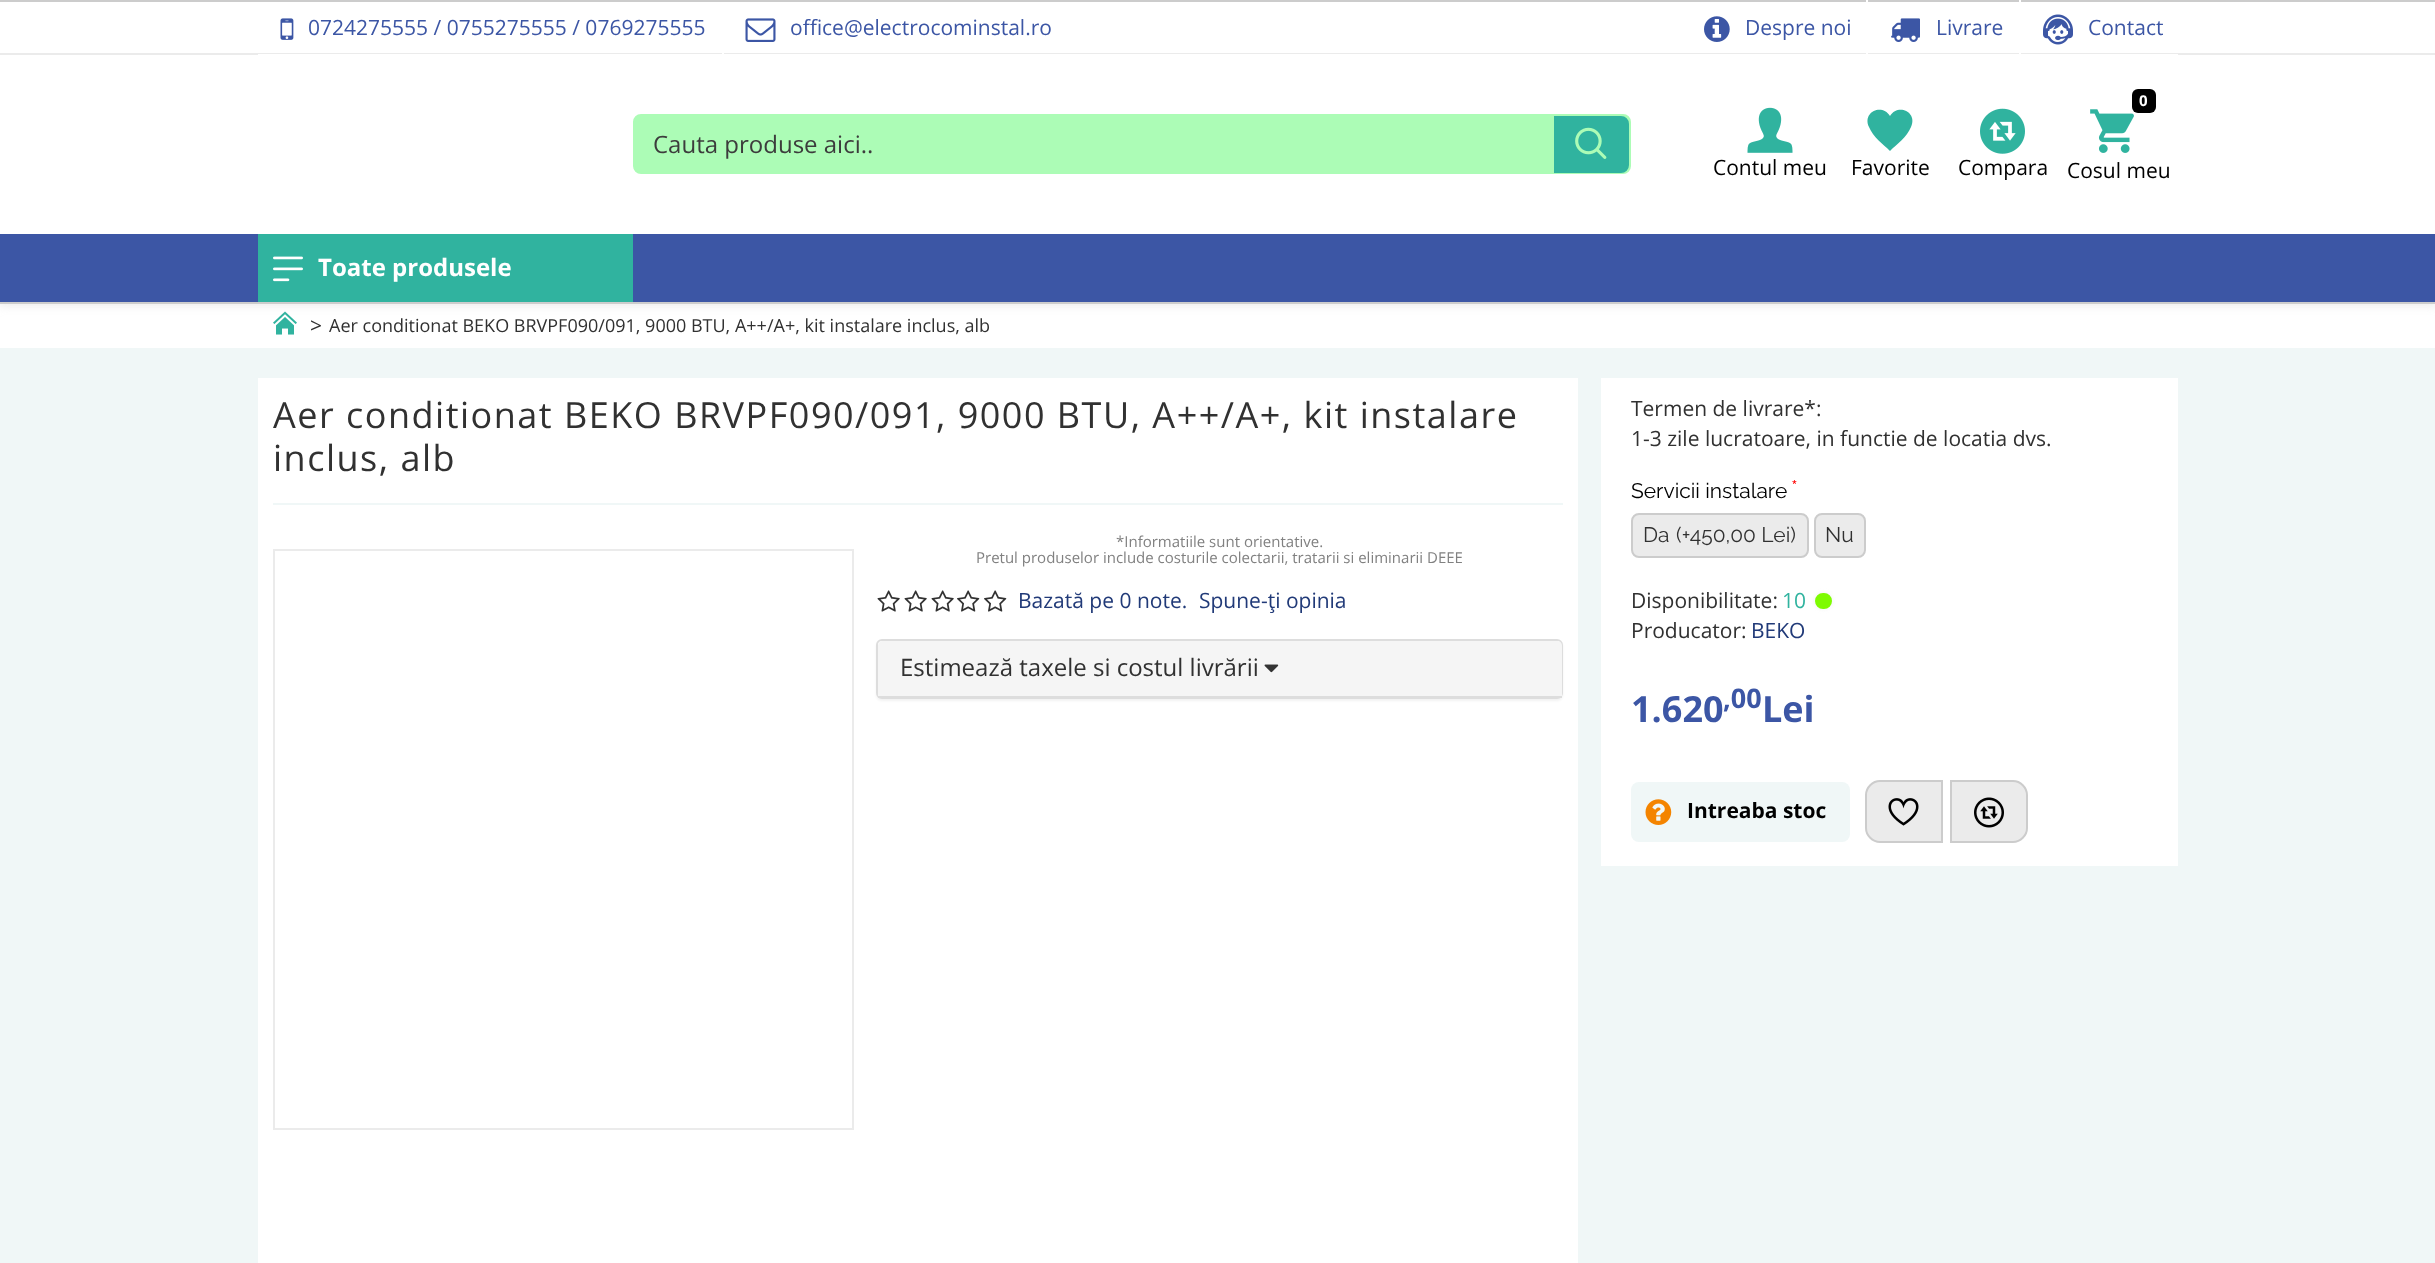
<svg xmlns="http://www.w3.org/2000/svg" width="2435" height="1263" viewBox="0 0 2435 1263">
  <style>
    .t1 { font: 21px Open Sans; fill: #3c56a5; }
    .t2 { font: 24px Open Sans; fill: #3c3c3c; }
    .t3 { font: bold 15px Open Sans; fill: #fff; }
    .t4 { font: 21px Open Sans; fill: #000; }
    .t5 { font: bold 24px Open Sans; fill: #fff; }
    .t6 { font: 21px Open Sans; fill: #313131; }
    .t7 { font: 18px Open Sans; fill: #313131; }
    .t8 { font: 36px Open Sans; letter-spacing: 1.5px; fill: #313131; }
    .t9 { font: 15px Open Sans; fill: #818181; }
    .t10 { font: 21px Open Sans; fill: #213a78; }
    .t11 { font: 24px Open Sans; fill: #313131; }
    .t12 { font: 21px Raleway; fill: #000; }
    .t13 { font: 21px Raleway; fill: #f00; }
    .t14 { font: 21px Raleway; fill: #313131; }
    .t15 { font: 21px Open Sans; fill: #30b39f; }
    .t16 { font: bold 36px Open Sans; fill: #3c56a5; }
    .t17 { font: bold 27px Open Sans; fill: #3c56a5; }
    .t18 { font: bold 21px Open Sans; fill: #000; }
  </style>
  <rect width="100%" height="100%" fill="#f0f7f7"/>
  <rect x="0" y="304" width="2435" height="44" fill="#fff"/>
  <image x="273" y="311" width="24" height="24" href="images/11.png"/>
  <rect x="-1" y="0" width="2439" height="306" fill="#dddddd91" filter="blur(5px)"/>
  <rect x="0" y="2" width="2435" height="232" fill="#fff"/>
  <rect x="0" y="0" width="2435" height="2" fill="#ccc"/>
  <rect x="0" y="302" width="2435" height="2" fill="#ccc"/>
  <image x="280" y="18" width="14" height="22" href="images/1.png"/>
  <text x="308" y="35" class="t1">0724275555 / 0755275555 / 0769275555</text>
  <rect x="0" y="53" width="2435" height="2" fill="#ebebeb"/>
  <rect x="722" y="53" width="2" height="1" fill="#fff"/>
  <image x="745" y="18" width="31" height="24" href="images/2.png"/>
  <text x="790" y="35" class="t1">office@electrocominstal.ro</text>
  <image x="1704" y="16" width="26" height="26" href="images/3.png"/>
  <text x="1745" y="35" class="t1">Despre noi</text>
  <rect x="258" y="54" width="1920" height="1" fill="#fff"/>
  <rect x="1866" y="0" width="2" height="59" fill="#fff"/>
  <image x="1891" y="18" width="29" height="24" href="images/4.png"/>
  <text x="1936" y="35" class="t1">Livrare</text>
  <rect x="2019" y="0" width="2" height="59" fill="#fff"/>
  <image x="2043" y="14" width="30" height="31" href="images/5.png"/>
  <text x="2088" y="35" class="t1">Contact</text>
  <rect x="634" y="115" width="996" height="58" rx="7" fill="#acfcb6" stroke="#acfcb6" stroke-width="2"/>
  <text x="653" y="153" class="t2">Cauta produse aici..</text>
  <path d="M1555 117H1621C1625 117 1628 120 1628 124V165C1628 169 1625 172 1621 172H1555Z" fill="#30b39f" stroke="#30b39f" stroke-width="2"/>
  <image x="1575" y="127" width="32" height="32" href="images/6.png"/>
  <image x="2090" y="109" width="44" height="44" href="images/7.png"/>
  <rect x="2132" y="89" width="24" height="24" rx="6" fill="#000"/>
  <text x="2139" y="106" class="t3">0</text>
  <text x="2067" y="178" class="t4">Cosul meu</text>
  <image x="1747" y="107" width="46" height="46" href="images/8.png"/>
  <text x="1713" y="175" class="t4">Contul meu</text>
  <path d="M1890 116C1882 103 1862 112 1869 127C1873 137 1883 144 1890 151C1897 144 1907 137 1911 127C1918 112 1898 103 1890 116Z" fill="#30b39f"/>
  <text x="1851" y="175" class="t4">Favorite</text>
  <image x="1980" y="108" width="45" height="46" href="images/9.png"/>
  <text x="1958" y="175" class="t4">Compara</text>
  <rect x="0" y="234" width="2435" height="68" fill="#3c56a5"/>
  <rect x="258" y="234" width="375" height="68" fill="#30b39f"/>
  <image x="273" y="256" width="30" height="26" href="images/10.png"/>
  <text x="318" y="276" class="t5">Toate produsele</text>
  <text x="310" y="333" class="t6">&gt;</text>
  <text x="329" y="332" class="t7">Aer conditionat BEKO BRVPF090/091, 9000 BTU, A++/A+, kit instalare inclus, alb</text>
  <rect x="258" y="378" width="1320" height="885" fill="#fff"/>
  <rect x="273" y="503" width="1290" height="2" fill="#f0f7f7"/>
  <text x="273" y="428" class="t8">Aer conditionat BEKO BRVPF090/091, 9000 BTU, A++/A+, kit instalare</text>
  <text x="273" y="471" class="t8">inclus, alb</text>
  <rect x="274" y="550" width="579" height="579" fill="none" stroke="#ebebeb" stroke-width="2"/>
  <text x="1116" y="547" class="t9">*Informatiile sunt orientative.</text>
  <text x="976" y="563" class="t9">Pretul produselor include costurile colectarii, tratarii si eliminarii DEEE</text>
  <image x="877" y="590" width="23" height="22" href="images/12.png"/>
  <image x="904" y="590" width="23" height="22" href="images/12.png"/>
  <image x="931" y="590" width="23" height="22" href="images/12.png"/>
  <image x="957" y="590" width="23" height="22" href="images/13.png"/>
  <image x="984" y="590" width="23" height="22" href="images/13.png"/>
  <text x="1018" y="608" class="t10">Bazată pe 0 note.</text>
  <text x="1199" y="608" class="t10">Spune-ţi opinia</text>
  <rect x="876" y="641" width="687" height="60" rx="6" fill="#0000000d" filter="blur(1px)"/>
  <rect x="877" y="640" width="685" height="58" rx="5" fill="#fff" stroke="#ddd" stroke-width="2"/>
  <path d="M883 641H1557C1560 641 1562 643 1562 646V698H878V646C878 643 880 641 883 641Z" fill="#f5f5f5"/>
  <rect x="878" y="696" width="684" height="2" fill="#ddd"/>
  <text x="900" y="676" class="t11">Estimează taxele si costul livrării</text>
  <image x="1264" y="664" width="15" height="9" href="images/14.png"/>
  <rect x="1601" y="378" width="577" height="488" fill="#fff"/>
  <text x="1631" y="416" class="t6">Termen de livrare*:</text>
  <text x="1631" y="446" class="t6">1-3 zile lucratoare, in functie de locatia dvs.</text>
  <text x="1631" y="498" class="t12">Servicii instalare</text>
  <text x="1791" y="495" class="t13">*</text>
  <rect x="1632" y="514" width="176" height="43" rx="7" fill="#ebebeb" stroke="#ccc" stroke-width="2"/>
  <text x="1643" y="542" class="t14">Da</text>
  <text x="1676" y="542" class="t14">(+450,00 Lei)</text>
  <rect x="1815" y="514" width="50" height="43" rx="7" fill="#ebebeb" stroke="#ccc" stroke-width="2"/>
  <text x="1825" y="542" class="t14">Nu</text>
  <text x="1631" y="608" class="t6">Disponibilitate:</text>
  <text x="1782" y="608" class="t15">10</text>
  <rect x="1815" y="593" width="17" height="16" rx="8" fill="#f1f1f1" filter="blur(2px)"/>
  <rect x="1816" y="594" width="15" height="14" rx="7" fill="#7efb02" stroke="#7efb02" stroke-width="2"/>
  <text x="1631" y="638" class="t6">Producator:</text>
  <text x="1751" y="638" class="t10">BEKO</text>
  <text x="1631" y="722" class="t16">1.620</text>
  <text x="1723" y="708" class="t17">,00</text>
  <text x="1762" y="722" class="t16">Lei</text>
  <rect x="1631" y="782" width="219" height="60" rx="8" fill="#f0f7f7"/>
  <image x="1645" y="799" width="27" height="26" href="images/15.png"/>
  <text x="1687" y="818" class="t18">Intreaba stoc</text>
  <path d="M1880 781H1942V842H1880C1872.5 842 1866 835.5 1866 828V795C1866 787.5 1872.5 781 1880 781Z" fill="#ebebeb" stroke="#ccc" stroke-width="2"/>
  <image x="1888" y="798" width="31" height="28" href="images/16.png"/>
  <path d="M1951 781H2013C2020.5 781 2027 787.5 2027 795V828C2027 835.5 2020.5 842 2013 842H1951Z" fill="#ebebeb" stroke="#ccc" stroke-width="2"/>
  <image x="1974" y="797" width="30" height="31" href="images/17.png"/>
</svg>
